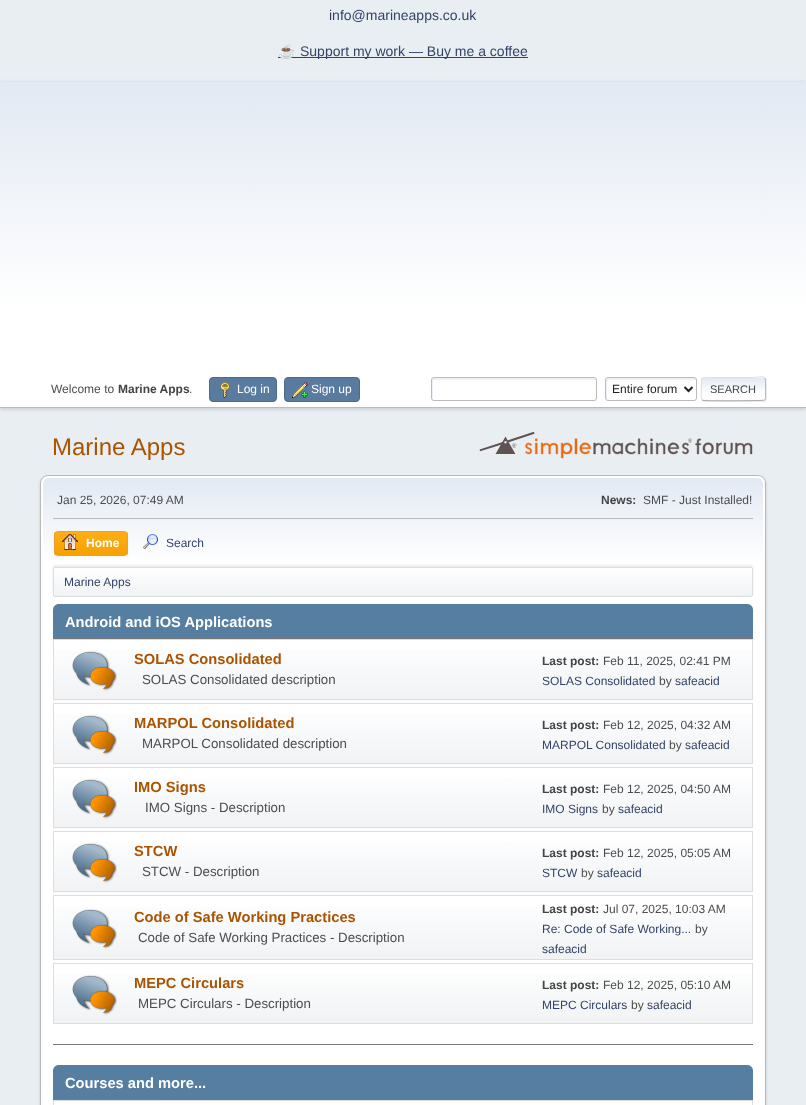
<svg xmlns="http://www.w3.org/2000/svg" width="806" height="1105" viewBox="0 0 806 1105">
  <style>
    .t1 { font: 14px Liberation Sans; fill: #346; }
    .t2 { font: 14px Noto Color Emoji; fill: #346; }
    .t3 { font: 12px Liberation Sans; fill: #4d4d4d; }
    .t4 { font: bold 12px Liberation Sans; fill: #444; }
    .t5 { font: 12px Liberation Sans; fill: #fff; }
    .t6 { font: 12px Liberation Sans; fill: #222; }
    .t7 { font: 11px Liberation Sans; fill: #444; }
    .t8 { font: 24px Liberation Sans; fill: #a85400; }
    .t9 { font: bold 12px Liberation Sans; fill: #fff; }
    .t10 { font: 12px Liberation Sans; fill: #346; }
    .t11 { font: bold 14.7px Liberation Sans; fill: #fff; }
    .t12 { font: bold 14.7px Liberation Sans; fill: #a85400; }
    .t13 { font: 13.3px Liberation Sans; fill: #4d4d4d; }
  </style>
  <defs>
    <linearGradient id="g1" gradientUnits="userSpaceOnUse" x1="403" y1="82" x2="403" y2="407"><stop offset="0" stop-color="#e2e9f3"/><stop offset="0.7" stop-color="#fff"/></linearGradient>
    <clipPath id="clip1"><rect x="701" y="377" width="65" height="24" rx="3"/></clipPath>
    <linearGradient id="g2" gradientUnits="userSpaceOnUse" x1="734" y1="378" x2="734" y2="400"><stop offset="0" stop-color="#e2e9f3"/><stop offset="0.7" stop-color="#fff"/></linearGradient>
    <linearGradient id="g3" gradientUnits="userSpaceOnUse" x1="734" y1="400" x2="734" y2="422"><stop offset="0" stop-color="#e2e9f3"/><stop offset="0.7" stop-color="#fff"/></linearGradient>
    <linearGradient id="g4" gradientUnits="userSpaceOnUse" x1="403" y1="478" x2="403" y2="599"><stop offset="0" stop-color="#e2e9f3"/><stop offset="0.7" stop-color="#fff"/></linearGradient>
    <clipPath id="clip2"><rect x="54" y="531" width="74" height="25" rx="4"/></clipPath>
    <linearGradient id="g5" gradientUnits="userSpaceOnUse" x1="91" y1="532" x2="91" y2="555"><stop offset="0" stop-color="#ffae14"/><stop offset="1" stop-color="#f5a100"/></linearGradient>
    <clipPath id="clip3"><rect x="53" y="567" width="700" height="30" rx="2"/></clipPath>
    <linearGradient id="g6" gradientUnits="userSpaceOnUse" x1="403" y1="568" x2="403" y2="596"><stop offset="0" stop-color="#fff"/><stop offset="0.95" stop-color="#f1f3f5"/></linearGradient>
    <linearGradient id="g7" gradientUnits="userSpaceOnUse" x1="403" y1="640" x2="403" y2="699"><stop offset="0" stop-color="#fff"/><stop offset="0.95" stop-color="#f1f3f5"/></linearGradient>
    <linearGradient id="g8" gradientUnits="userSpaceOnUse" x1="403" y1="704" x2="403" y2="763"><stop offset="0" stop-color="#fff"/><stop offset="0.95" stop-color="#f1f3f5"/></linearGradient>
    <linearGradient id="g9" gradientUnits="userSpaceOnUse" x1="403" y1="768" x2="403" y2="827"><stop offset="0" stop-color="#fff"/><stop offset="0.95" stop-color="#f1f3f5"/></linearGradient>
    <linearGradient id="g10" gradientUnits="userSpaceOnUse" x1="403" y1="832" x2="403" y2="891"><stop offset="0" stop-color="#fff"/><stop offset="0.95" stop-color="#f1f3f5"/></linearGradient>
    <linearGradient id="g11" gradientUnits="userSpaceOnUse" x1="403" y1="896" x2="403" y2="959"><stop offset="0" stop-color="#fff"/><stop offset="0.95" stop-color="#f1f3f5"/></linearGradient>
    <linearGradient id="g12" gradientUnits="userSpaceOnUse" x1="403" y1="964" x2="403" y2="1023"><stop offset="0" stop-color="#fff"/><stop offset="0.95" stop-color="#f1f3f5"/></linearGradient>
  </defs>
  <rect width="100%" height="100%" fill="#e9eef2"/>
  <text x="329" y="20" class="t1">info@marineapps.co.uk</text>
  <rect x="278" y="57" width="250" height="1" fill="#346"/>
  <text x="278" y="56" class="t2">☕️</text>
  <text x="300" y="56" class="t1">Support my work — Buy me a coffee</text>
  <rect x="0" y="83" width="806" height="326" fill="#00000029" filter="blur(2px)"/>
  <rect x="0" y="82" width="806" height="325" fill="url(#g1)"/>
  <rect x="0" y="407" width="806" height="1" fill="#bbb"/>
  <text x="51" y="393" class="t3">Welcome to</text>
  <text x="118" y="393" class="t4">Marine Apps</text>
  <text x="189" y="393" class="t3">.</text>
  <rect x="209.5" y="377.5" width="67" height="24" rx="3.5" fill="#597b9f" stroke="#4a6b8c"/>
  <image x="220" y="382" width="10" height="16" href="images/1.png"/>
  <text x="237" y="393" class="t5">Log in</text>
  <rect x="284.5" y="377.5" width="75" height="24" rx="3.5" fill="#597b9f" stroke="#4a6b8c"/>
  <image x="292" y="382" width="16" height="16" href="images/2.png"/>
  <text x="311" y="393" class="t5">Sign up</text>
  <path d="M435 380H596V379L594 378H434C433 378 432 379 432 380C432 383 431 399 433 400V382C433 381 434 380 435 380Z" fill="#ecf1f8"/>
  <rect x="431.5" y="377.5" width="165" height="23" rx="2.5" fill="none" stroke="#bbb"/>
  <path d="M609 380H696C696 375 684 378 680 378H622C604 378 606 374 606 389C606 391 605 399 607 400V382C607 381 608 380 609 380Z" fill="#ecf1f8"/>
  <rect x="605.5" y="377.5" width="91" height="23" rx="2.5" fill="none" stroke="#bbb"/>
  <path d="M684.5 387L688.5 391L692.5 387" fill="none" stroke="#222" stroke-width="2"/>
  <text x="612" y="393" class="t6">Entire forum</text>
  <rect x="702" y="378" width="65" height="24" rx="3" fill="#dddddd91" filter="blur(0.5px)"/>
  <rect x="701" y="377" width="65" height="24" rx="3" fill="#fff"/>
  <g clip-path="url(#clip1)">
    <rect x="701" y="378" width="65" height="22" fill="url(#g2)"/>
    <rect x="701" y="400" width="65" height="1" fill="url(#g3)"/>
  </g>
  <path d="M765 378C765 378.5 765.5 379.5 765.5 380V398C765.5 398.5 765 399.5 765 400" fill="none" stroke="#bbb"/>
  <path d="M765 400H764.5C763.5 401 709 401 704 400.5L702 400" fill="none" stroke="#aaa"/>
  <path d="M702 400C700.5 398 701.5 391 701.5 389C701.5 375.5 699.5 377.5 714 377.5H753C757 377.5 762 375.5 765 378" fill="none" stroke="#ddd"/>
  <text x="710" y="393" class="t7">SEARCH</text>
  <text x="52" y="455" class="t8">Marine Apps</text>
  <image x="479" y="431" width="274" height="28" href="images/3.png"/>
  <rect x="40" y="477" width="726" height="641" rx="8" fill="#00000024" filter="blur(1.5px)"/>
  <rect x="40.5" y="475.5" width="725" height="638" rx="7.5" fill="#fff" stroke="#b8b8b8"/>
  <path d="M49 478H757C760.5 478 763 480.5 763 484V599H43V484C43 480.5 45.5 478 49 478Z" fill="url(#g4)"/>
  <rect x="53" y="518" width="700" height="1" fill="#bbb"/>
  <text x="57" y="504" class="t3">Jan 25, 2026, 07:49 AM</text>
  <text x="601" y="504" class="t4">News:</text>
  <text x="643" y="504" class="t3">SMF - Just Installed!</text>
  <g clip-path="url(#clip2)">
    <rect x="54" y="532" width="74" height="23" fill="url(#g5)"/>
  </g>
  <rect x="54.5" y="531.5" width="73" height="24" rx="3.5" fill="none" stroke="#f49a3a"/>
  <image x="62" y="534" width="16" height="16" href="images/4.png"/>
  <text x="86" y="547" class="t9">Home</text>
  <image x="143" y="534" width="15" height="15" href="images/5.png"/>
  <text x="166" y="547" class="t10">Search</text>
  <rect x="53" y="565" width="700" height="30" rx="2" fill="#00000014" filter="blur(1px)"/>
  <g clip-path="url(#clip3)">
    <rect x="53" y="568" width="700" height="28" fill="url(#g6)"/>
  </g>
  <rect x="53.5" y="567.5" width="699" height="29" rx="1.5" fill="none" stroke="#ddd"/>
  <text x="64" y="586" class="t10">Marine Apps</text>
  <path d="M59 604H747C750.5 604 753 606.5 753 610V639H53V610C53 606.5 55.5 604 59 604Z" fill="#557ea0"/>
  <rect x="53" y="638" width="700" height="1" fill="#777"/>
  <text x="65" y="627" class="t11">Android and iOS Applications</text>
  <rect x="54" y="650" width="698" height="49" fill="url(#g7)"/>
  <rect x="53.5" y="639.5" width="699" height="60" fill="none" stroke="#ddd"/>
  <image x="72" y="651" width="45" height="40" href="images/6.png"/>
  <text x="134" y="664" class="t12">SOLAS Consolidated</text>
  <text x="142" y="684" class="t13">SOLAS Consolidated description</text>
  <text x="542" y="665" class="t4">Last post:</text>
  <text x="603" y="665" class="t3">Feb 11, 2025, 02:41 PM</text>
  <text x="542" y="685" class="t10">SOLAS Consolidated</text>
  <text x="659" y="685" class="t3">by</text>
  <text x="675" y="685" class="t10">safeacid</text>
  <rect x="54" y="714" width="698" height="49" fill="url(#g8)"/>
  <rect x="53.5" y="703.5" width="699" height="60" fill="none" stroke="#ddd"/>
  <image x="72" y="715" width="45" height="40" href="images/6.png"/>
  <text x="134" y="728" class="t12">MARPOL Consolidated</text>
  <text x="142" y="748" class="t13">MARPOL Consolidated description</text>
  <text x="542" y="729" class="t4">Last post:</text>
  <text x="603" y="729" class="t3">Feb 12, 2025, 04:32 AM</text>
  <text x="542" y="749" class="t10">MARPOL Consolidated</text>
  <text x="669" y="749" class="t3">by</text>
  <text x="685" y="749" class="t10">safeacid</text>
  <rect x="54" y="778" width="698" height="49" fill="url(#g9)"/>
  <rect x="53.5" y="767.5" width="699" height="60" fill="none" stroke="#ddd"/>
  <image x="72" y="779" width="45" height="40" href="images/6.png"/>
  <text x="134" y="792" class="t12">IMO Signs</text>
  <text x="145" y="812" class="t13">IMO Signs - Description</text>
  <text x="542" y="793" class="t4">Last post:</text>
  <text x="603" y="793" class="t3">Feb 12, 2025, 04:50 AM</text>
  <text x="542" y="813" class="t10">IMO Signs</text>
  <text x="602" y="813" class="t3">by</text>
  <text x="618" y="813" class="t10">safeacid</text>
  <rect x="54" y="842" width="698" height="49" fill="url(#g10)"/>
  <rect x="53.5" y="831.5" width="699" height="60" fill="none" stroke="#ddd"/>
  <image x="72" y="843" width="45" height="40" href="images/6.png"/>
  <text x="134" y="856" class="t12">STCW</text>
  <text x="142" y="876" class="t13">STCW - Description</text>
  <text x="542" y="857" class="t4">Last post:</text>
  <text x="603" y="857" class="t3">Feb 12, 2025, 05:05 AM</text>
  <text x="542" y="877" class="t10">STCW</text>
  <text x="581" y="877" class="t3">by</text>
  <text x="597" y="877" class="t10">safeacid</text>
  <rect x="54" y="907" width="698" height="52" fill="url(#g11)"/>
  <rect x="53.5" y="895.5" width="699" height="64" fill="none" stroke="#ddd"/>
  <image x="72" y="909" width="45" height="40" href="images/7.png"/>
  <text x="134" y="922" class="t12">Code of Safe Working Practices</text>
  <text x="138" y="942" class="t13">Code of Safe Working Practices - Description</text>
  <text x="542" y="913" class="t4">Last post:</text>
  <text x="603" y="913" class="t3">Jul 07, 2025, 10:03 AM</text>
  <text x="542" y="933" class="t10">Re: Code of Safe Working...</text>
  <text x="695" y="933" class="t3">by</text>
  <text x="542" y="953" class="t10">safeacid</text>
  <rect x="54" y="974" width="698" height="49" fill="url(#g12)"/>
  <rect x="53.5" y="963.5" width="699" height="60" fill="none" stroke="#ddd"/>
  <image x="72" y="975" width="45" height="40" href="images/6.png"/>
  <text x="134" y="988" class="t12">MEPC Circulars</text>
  <text x="138" y="1008" class="t13">MEPC Circulars - Description</text>
  <text x="542" y="989" class="t4">Last post:</text>
  <text x="603" y="989" class="t3">Feb 12, 2025, 05:10 AM</text>
  <text x="542" y="1009" class="t10">MEPC Circulars</text>
  <text x="631" y="1009" class="t3">by</text>
  <text x="647" y="1009" class="t10">safeacid</text>
  <rect x="53" y="1044" width="700" height="1" fill="#777"/>
  <path d="M59 1065H747C750.5 1065 753 1067.5 753 1071V1100H53V1071C53 1067.5 55.5 1065 59 1065Z" fill="#557ea0"/>
  <rect x="53" y="1099" width="700" height="1" fill="#777"/>
  <text x="65" y="1088" class="t11">Courses and more...</text>
  <rect x="53.5" y="1100.5" width="699" height="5" fill="none" stroke="#ddd"/>
</svg>
